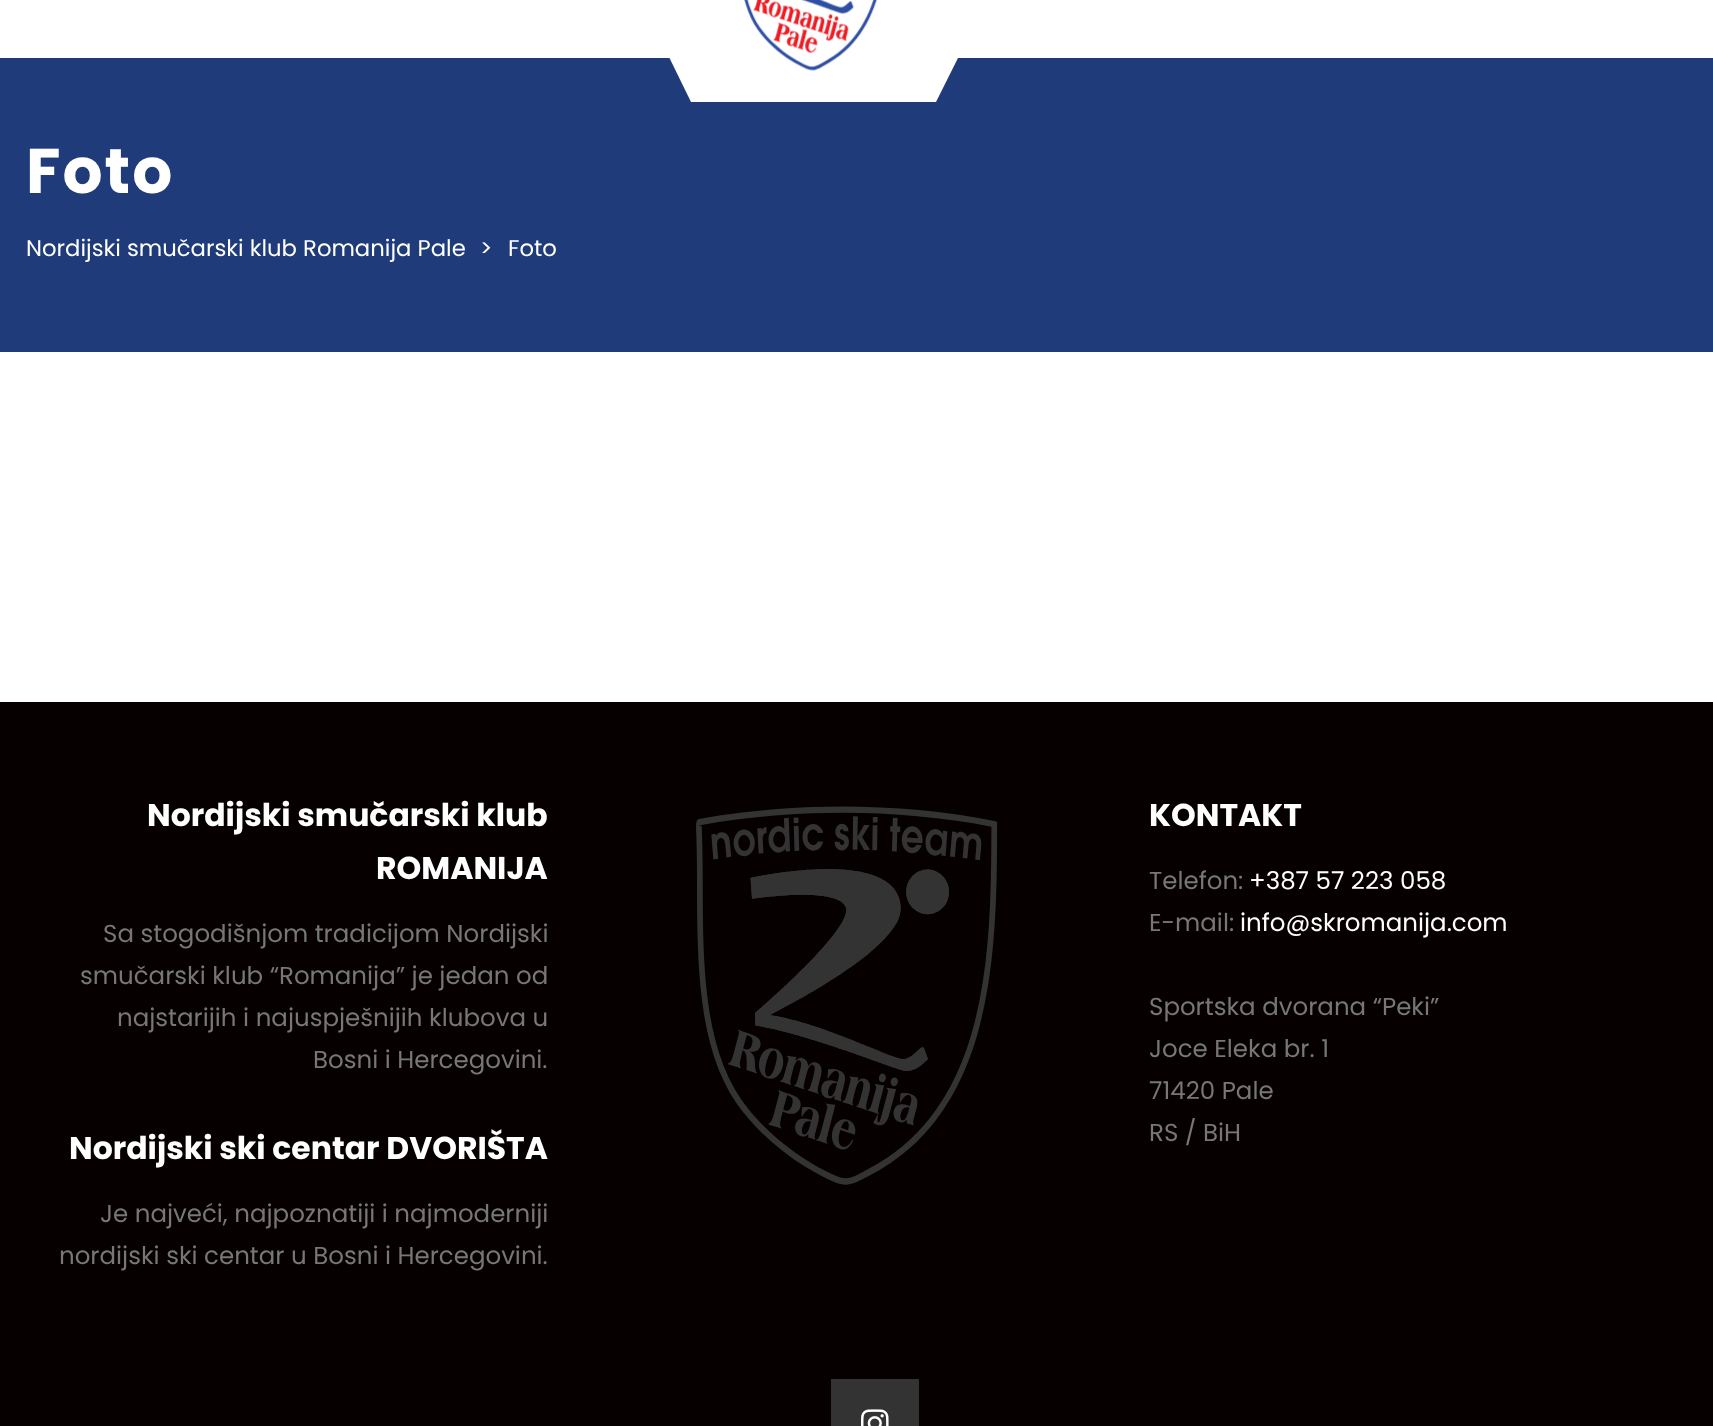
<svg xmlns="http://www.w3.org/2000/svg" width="1713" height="1426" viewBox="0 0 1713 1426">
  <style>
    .t1 { font: bold 63px Poppins; letter-spacing: 2px; fill: #fff; }
    .t2 { font: 22.75px Poppins; fill: #fff; }
    .t3 { font: 22.75px Poppins; letter-spacing: 1px; fill: #fff; }
    .t4 { font: bold 31.5px Poppins; fill: #fff; }
    .t5 { font: 24.5px Poppins; fill: #777; }
    .t6 { font: 24.5px Poppins; fill: #fff; }
  </style>
  <rect width="100%" height="100%" fill="#fff"/>
  <rect x="0" y="58" width="1713" height="294" fill="#1f3b79"/>
  <path d="M648 14H980L936 102H691Z" fill="#fff"/>
  <image x="744" y="0" width="134" height="71" href="images/1.png"/>
  <text x="26" y="193" class="t1">Foto</text>
  <text x="26" y="256" class="t2">Nordijski smučarski klub Romanija Pale</text>
  <text x="480" y="256" class="t3">&gt;</text>
  <text x="508" y="256" class="t2">Foto</text>
  <rect x="0" y="702" width="1713" height="724" fill="#070000"/>
  <text x="147" y="826" class="t4">Nordijski smučarski klub</text>
  <text x="376" y="879" class="t4">ROMANIJA</text>
  <text x="103" y="942" class="t5">Sa stogodišnjom tradicijom Nordijski</text>
  <text x="80" y="984" class="t5">smučarski klub “Romanija” je jedan od</text>
  <text x="117" y="1026" class="t5">najstarijih i najuspješnijih klubova u</text>
  <text x="313" y="1068" class="t5">Bosni i Hercegovini.</text>
  <text x="69" y="1159" class="t4">Nordijski ski centar DVORIŠTA</text>
  <text x="100" y="1222" class="t5">Je najveći, najpoznatiji i najmoderniji</text>
  <text x="59" y="1264" class="t5">nordijski ski centar u Bosni i Hercegovini.</text>
  <image x="696" y="806" width="302" height="379" href="images/2.png"/>
  <text x="1149" y="826" class="t4">KONTAKT</text>
  <text x="1149" y="889" class="t5">Telefon:</text>
  <text x="1249" y="889" class="t6">+387 57 223 058</text>
  <text x="1149" y="931" class="t5">E-mail:</text>
  <text x="1240" y="931" class="t6">info@skromanija.com</text>
  <text x="1149" y="1015" class="t5">Sportska dvorana “Peki”</text>
  <text x="1149" y="1057" class="t5">Joce Eleka br. 1</text>
  <text x="1149" y="1099" class="t5">71420 Pale</text>
  <text x="1149" y="1141" class="t5">RS / BiH</text>
  <rect x="831" y="1379" width="88" height="47" fill="#333"/>
  <image x="861" y="1409" width="28" height="17" href="images/3.png"/>
</svg>
